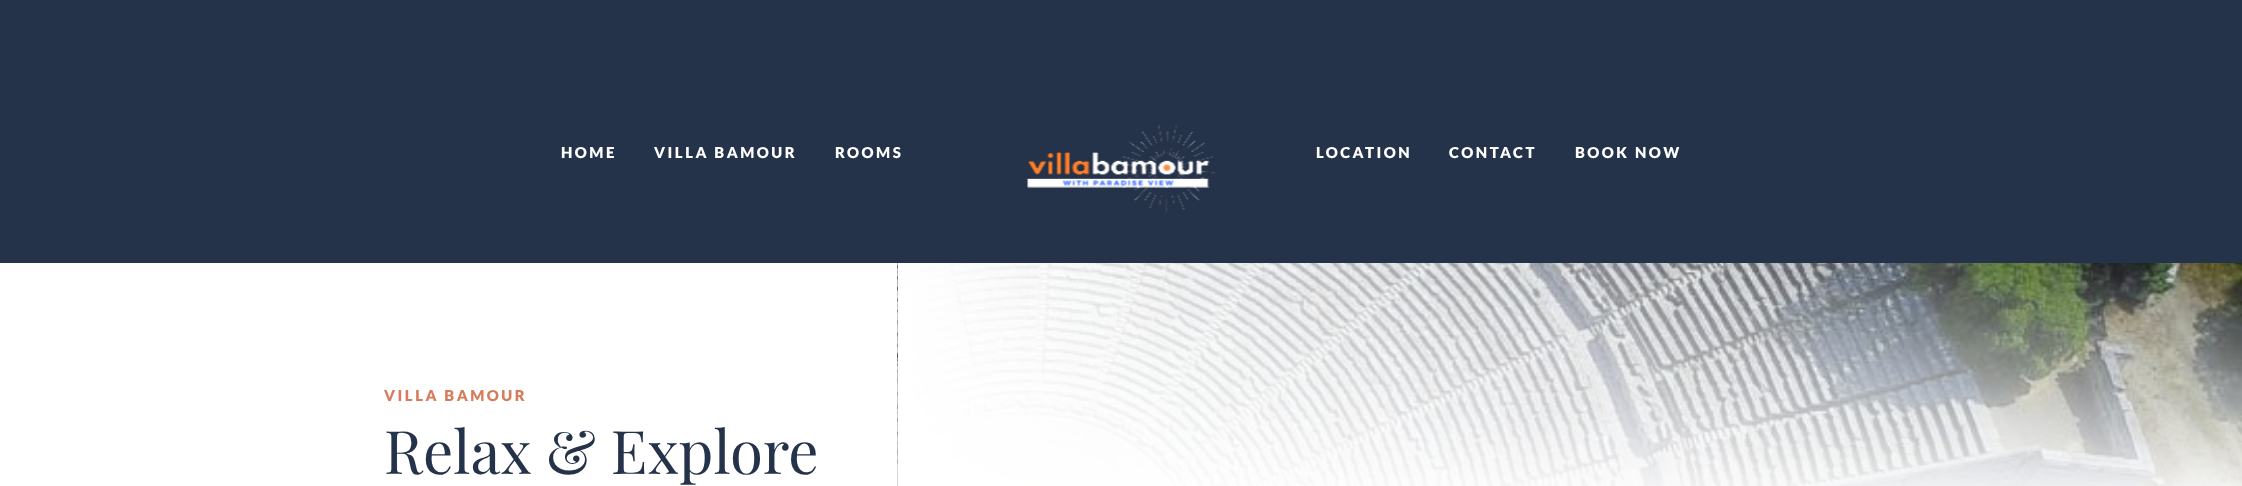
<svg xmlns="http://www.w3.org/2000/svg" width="2242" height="486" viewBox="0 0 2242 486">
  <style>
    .t1 { font: 900 15px Lato; letter-spacing: 2.5px; fill: #fff; }
    .t2 { font: 900 15px Lato; letter-spacing: 2.5px; fill: #d77b5d; }
    .t3 { font: 60px Playfair Display; fill: #24324a; }
  </style>
  <rect width="100%" height="100%" fill="#fff"/>
  <rect x="0" y="0" width="2242" height="263" fill="#24324a"/>
  <image x="1027" y="125" width="189" height="88" href="images/1.png"/>
  <text x="561" y="158" class="t1">HOME</text>
  <text x="654" y="158" class="t1">VILLA BAMOUR</text>
  <text x="835" y="158" class="t1">ROOMS</text>
  <text x="1316" y="158" class="t1">LOCATION</text>
  <text x="1449" y="158" class="t1">CONTACT</text>
  <text x="1575" y="158" class="t1">BOOK NOW</text>
  <text x="384" y="401" class="t2">VILLA BAMOUR</text>
  <text x="384" y="474" class="t3">Relax &amp; Explore</text>
  <image x="897" y="263" width="1345" height="223" href="images/2.png"/>
</svg>
